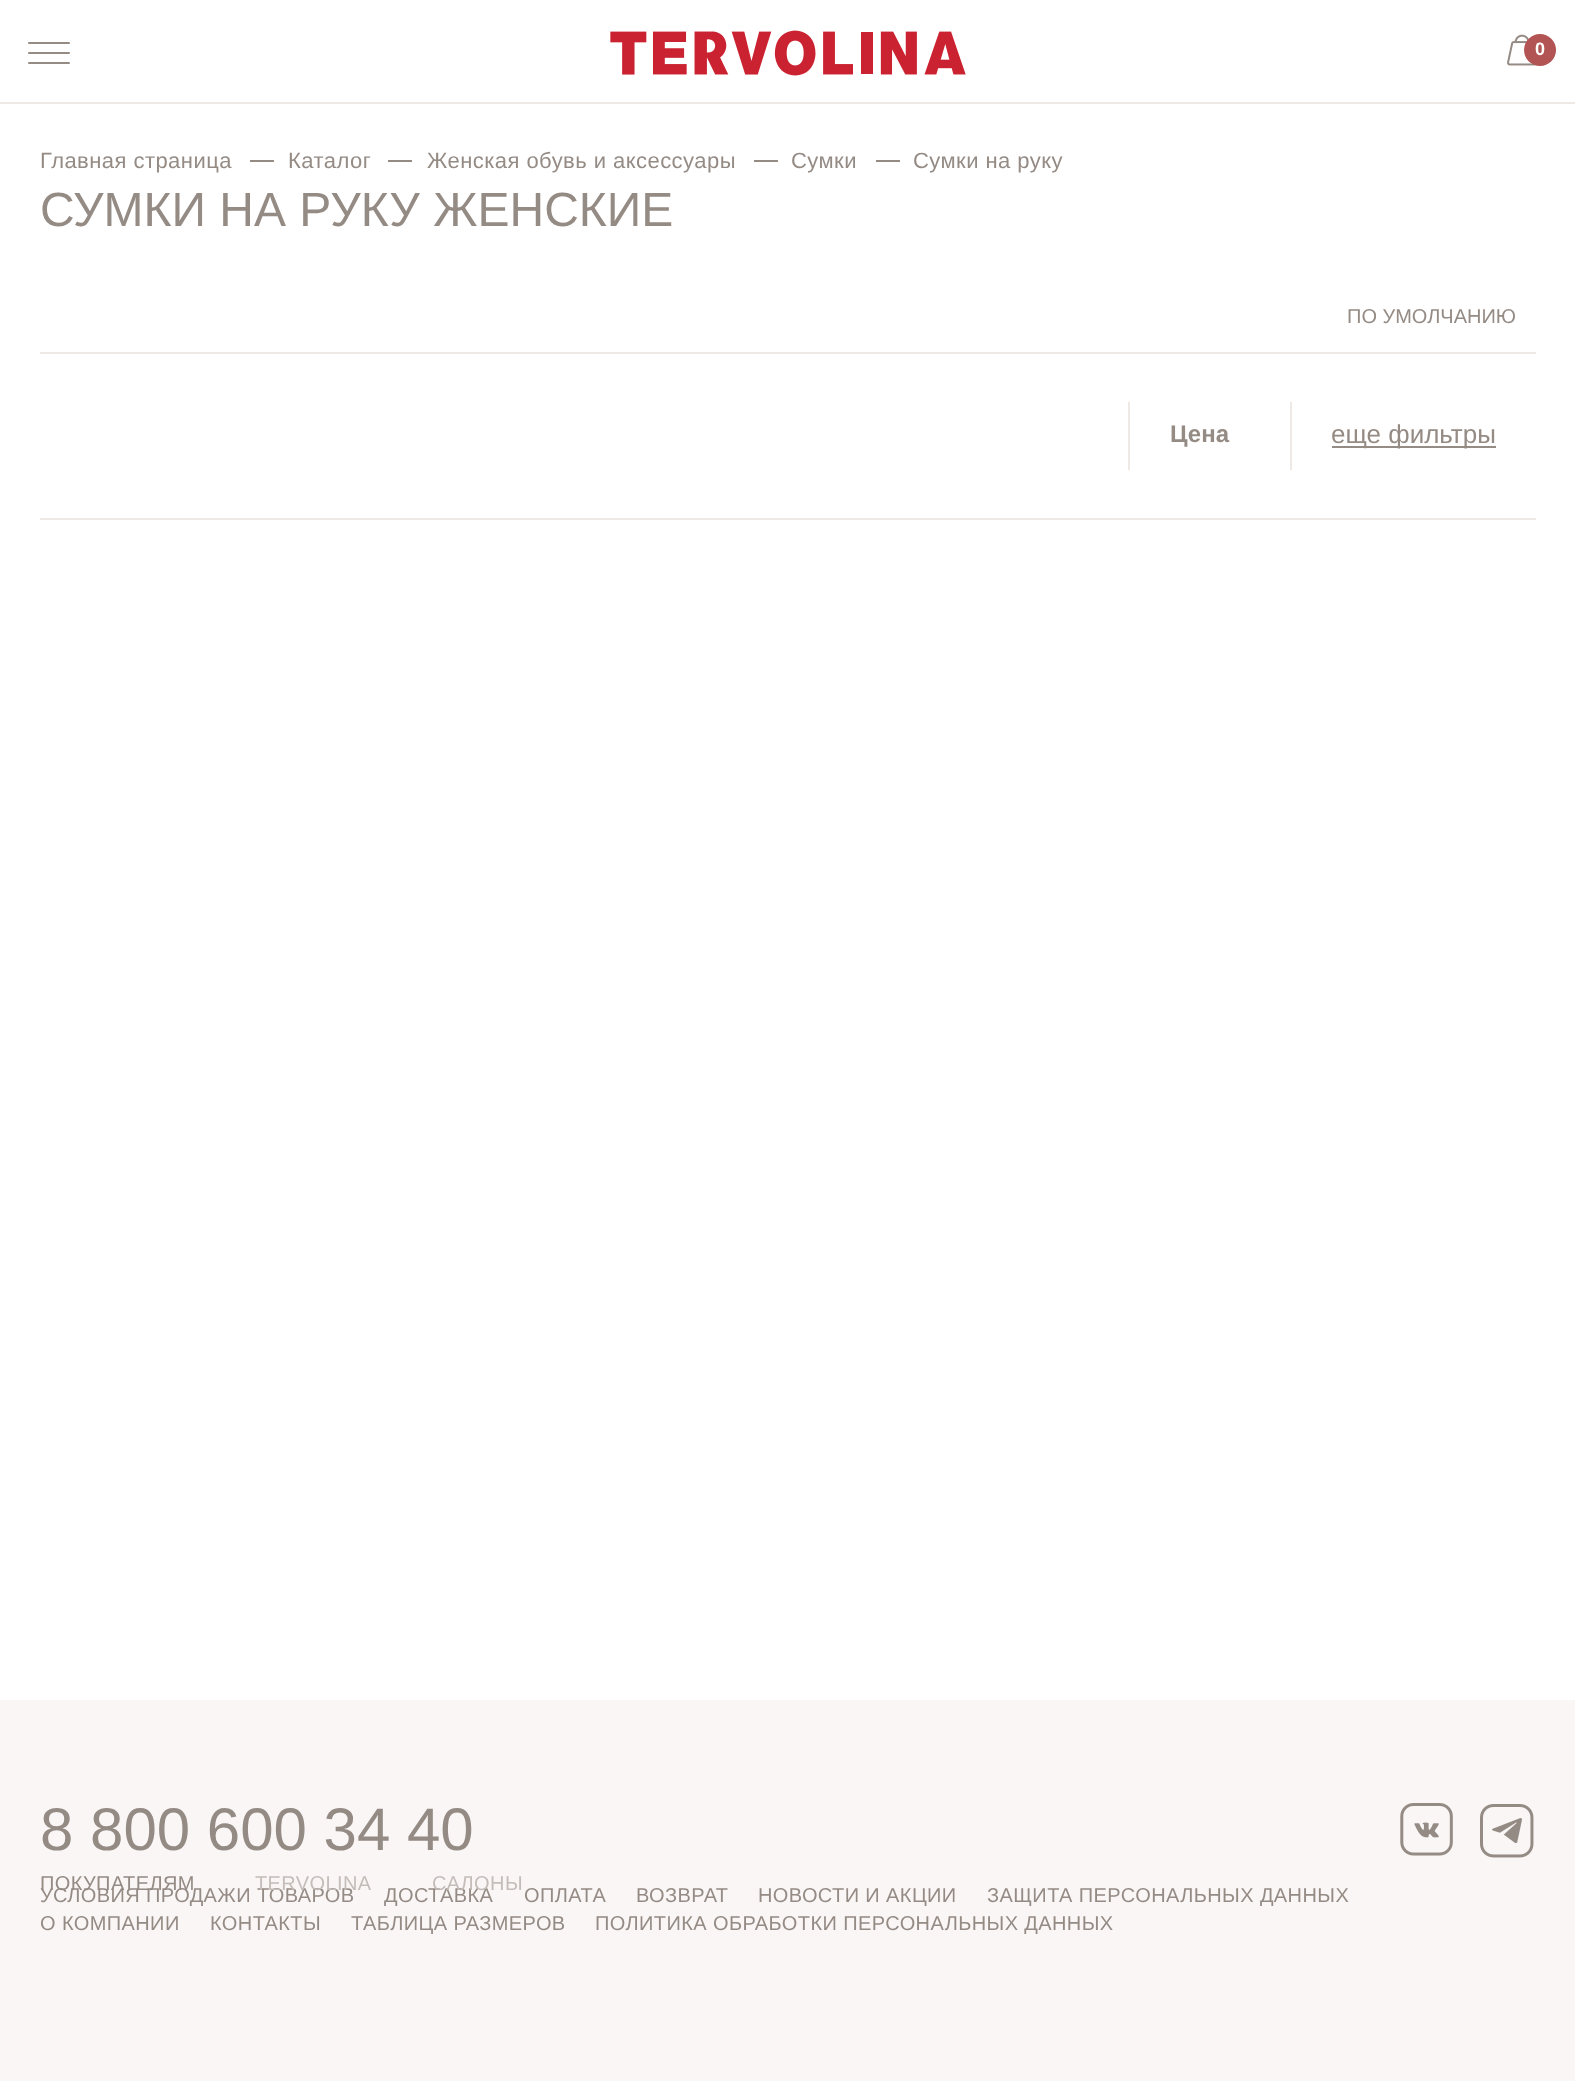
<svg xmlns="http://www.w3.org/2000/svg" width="1575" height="2081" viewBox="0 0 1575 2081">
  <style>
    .t1 { font: bold 18px Liberation Sans; fill: #fff; }
    .t2 { font: 22px Liberation Sans; letter-spacing: 0.45px; fill: #958b85; }
    .t3 { font: 48px Liberation Sans; fill: #958b85; }
    .t4 { font: 20px Liberation Sans; fill: #958b85; }
    .t5 { font: bold 24px Liberation Sans; fill: #958b85; }
    .t6 { font: 26px Liberation Sans; fill: #958b85; }
    .t7 { font: 60px Liberation Sans; fill: #958b85; }
    .t8 { font: 20px Liberation Sans; letter-spacing: 0.4px; fill: #958b85; }
    .t9 { font: 20px Liberation Sans; letter-spacing: 0.4px; fill: #c4bdb9; }
  </style>
  <rect width="100%" height="100%" fill="#fff"/>
  <rect x="28" y="42" width="42" height="2" rx="1" fill="#958b85"/>
  <rect x="28" y="52" width="42" height="2" rx="1" fill="#958b85"/>
  <rect x="28" y="62" width="42" height="2" rx="1" fill="#958b85"/>
  <rect x="0" y="102" width="1575" height="2" fill="#efe9e5"/>
  <image x="610" y="30" width="356" height="46" href="images/1.png"/>
  <image x="1507" y="34" width="29" height="32" href="images/2.png"/>
  <circle cx="1540" cy="50" r="16" fill="#b25454"/>
  <text x="1535" y="55" class="t1">0</text>
  <text x="40" y="168" class="t2">Главная страница</text>
  <rect x="250" y="160" width="24" height="2" fill="#958b85"/>
  <text x="288" y="168" class="t2">Каталог</text>
  <rect x="388" y="160" width="24" height="2" fill="#958b85"/>
  <text x="427" y="168" class="t2">Женская обувь и аксессуары</text>
  <rect x="754" y="160" width="24" height="2" fill="#958b85"/>
  <text x="791" y="168" class="t2">Сумки</text>
  <rect x="876" y="160" width="24" height="2" fill="#958b85"/>
  <text x="913" y="168" class="t2">Сумки на руку</text>
  <text x="40" y="226" class="t3">СУМКИ НА РУКУ ЖЕНСКИЕ</text>
  <text x="1347" y="323" class="t4">ПО УМОЛЧАНИЮ</text>
  <rect x="40" y="352" width="1496" height="2" fill="#efe9e5"/>
  <rect x="40" y="518" width="1496" height="2" fill="#efe9e5"/>
  <rect x="1128" y="402" width="2" height="68" fill="#eee9e5"/>
  <text x="1170" y="442" class="t5">Цена</text>
  <rect x="1290" y="402" width="2" height="68" fill="#eee9e5"/>
  <rect x="1332" y="446" width="164" height="2" fill="#958b85"/>
  <text x="1331" y="443" class="t6">еще фильтры</text>
  <rect x="0" y="1700" width="1575" height="381" fill="#faf6f6"/>
  <text x="40" y="1850" class="t7">8 800 600 34 40</text>
  <image x="1400" y="1803" width="53" height="53" href="images/3.png"/>
  <image x="1480" y="1804" width="54" height="54" href="images/4.png"/>
  <text x="40" y="1890" class="t8">ПОКУПАТЕЛЯМ</text>
  <text x="40" y="1902" class="t8">УСЛОВИЯ ПРОДАЖИ ТОВАРОВ</text>
  <text x="384" y="1902" class="t8">ДОСТАВКА</text>
  <text x="524" y="1902" class="t8">ОПЛАТА</text>
  <text x="636" y="1902" class="t8">ВОЗВРАТ</text>
  <text x="758" y="1902" class="t8">НОВОСТИ И АКЦИИ</text>
  <text x="987" y="1902" class="t8">ЗАЩИТА ПЕРСОНАЛЬНЫХ ДАННЫХ</text>
  <text x="40" y="1930" class="t8">О КОМПАНИИ</text>
  <text x="210" y="1930" class="t8">КОНТАКТЫ</text>
  <text x="351" y="1930" class="t8">ТАБЛИЦА РАЗМЕРОВ</text>
  <text x="595" y="1930" class="t8">ПОЛИТИКА ОБРАБОТКИ ПЕРСОНАЛЬНЫХ ДАННЫХ</text>
  <text x="255" y="1890" class="t9">TERVOLINA</text>
  <text x="432" y="1890" class="t9">САЛОНЫ</text>
</svg>
